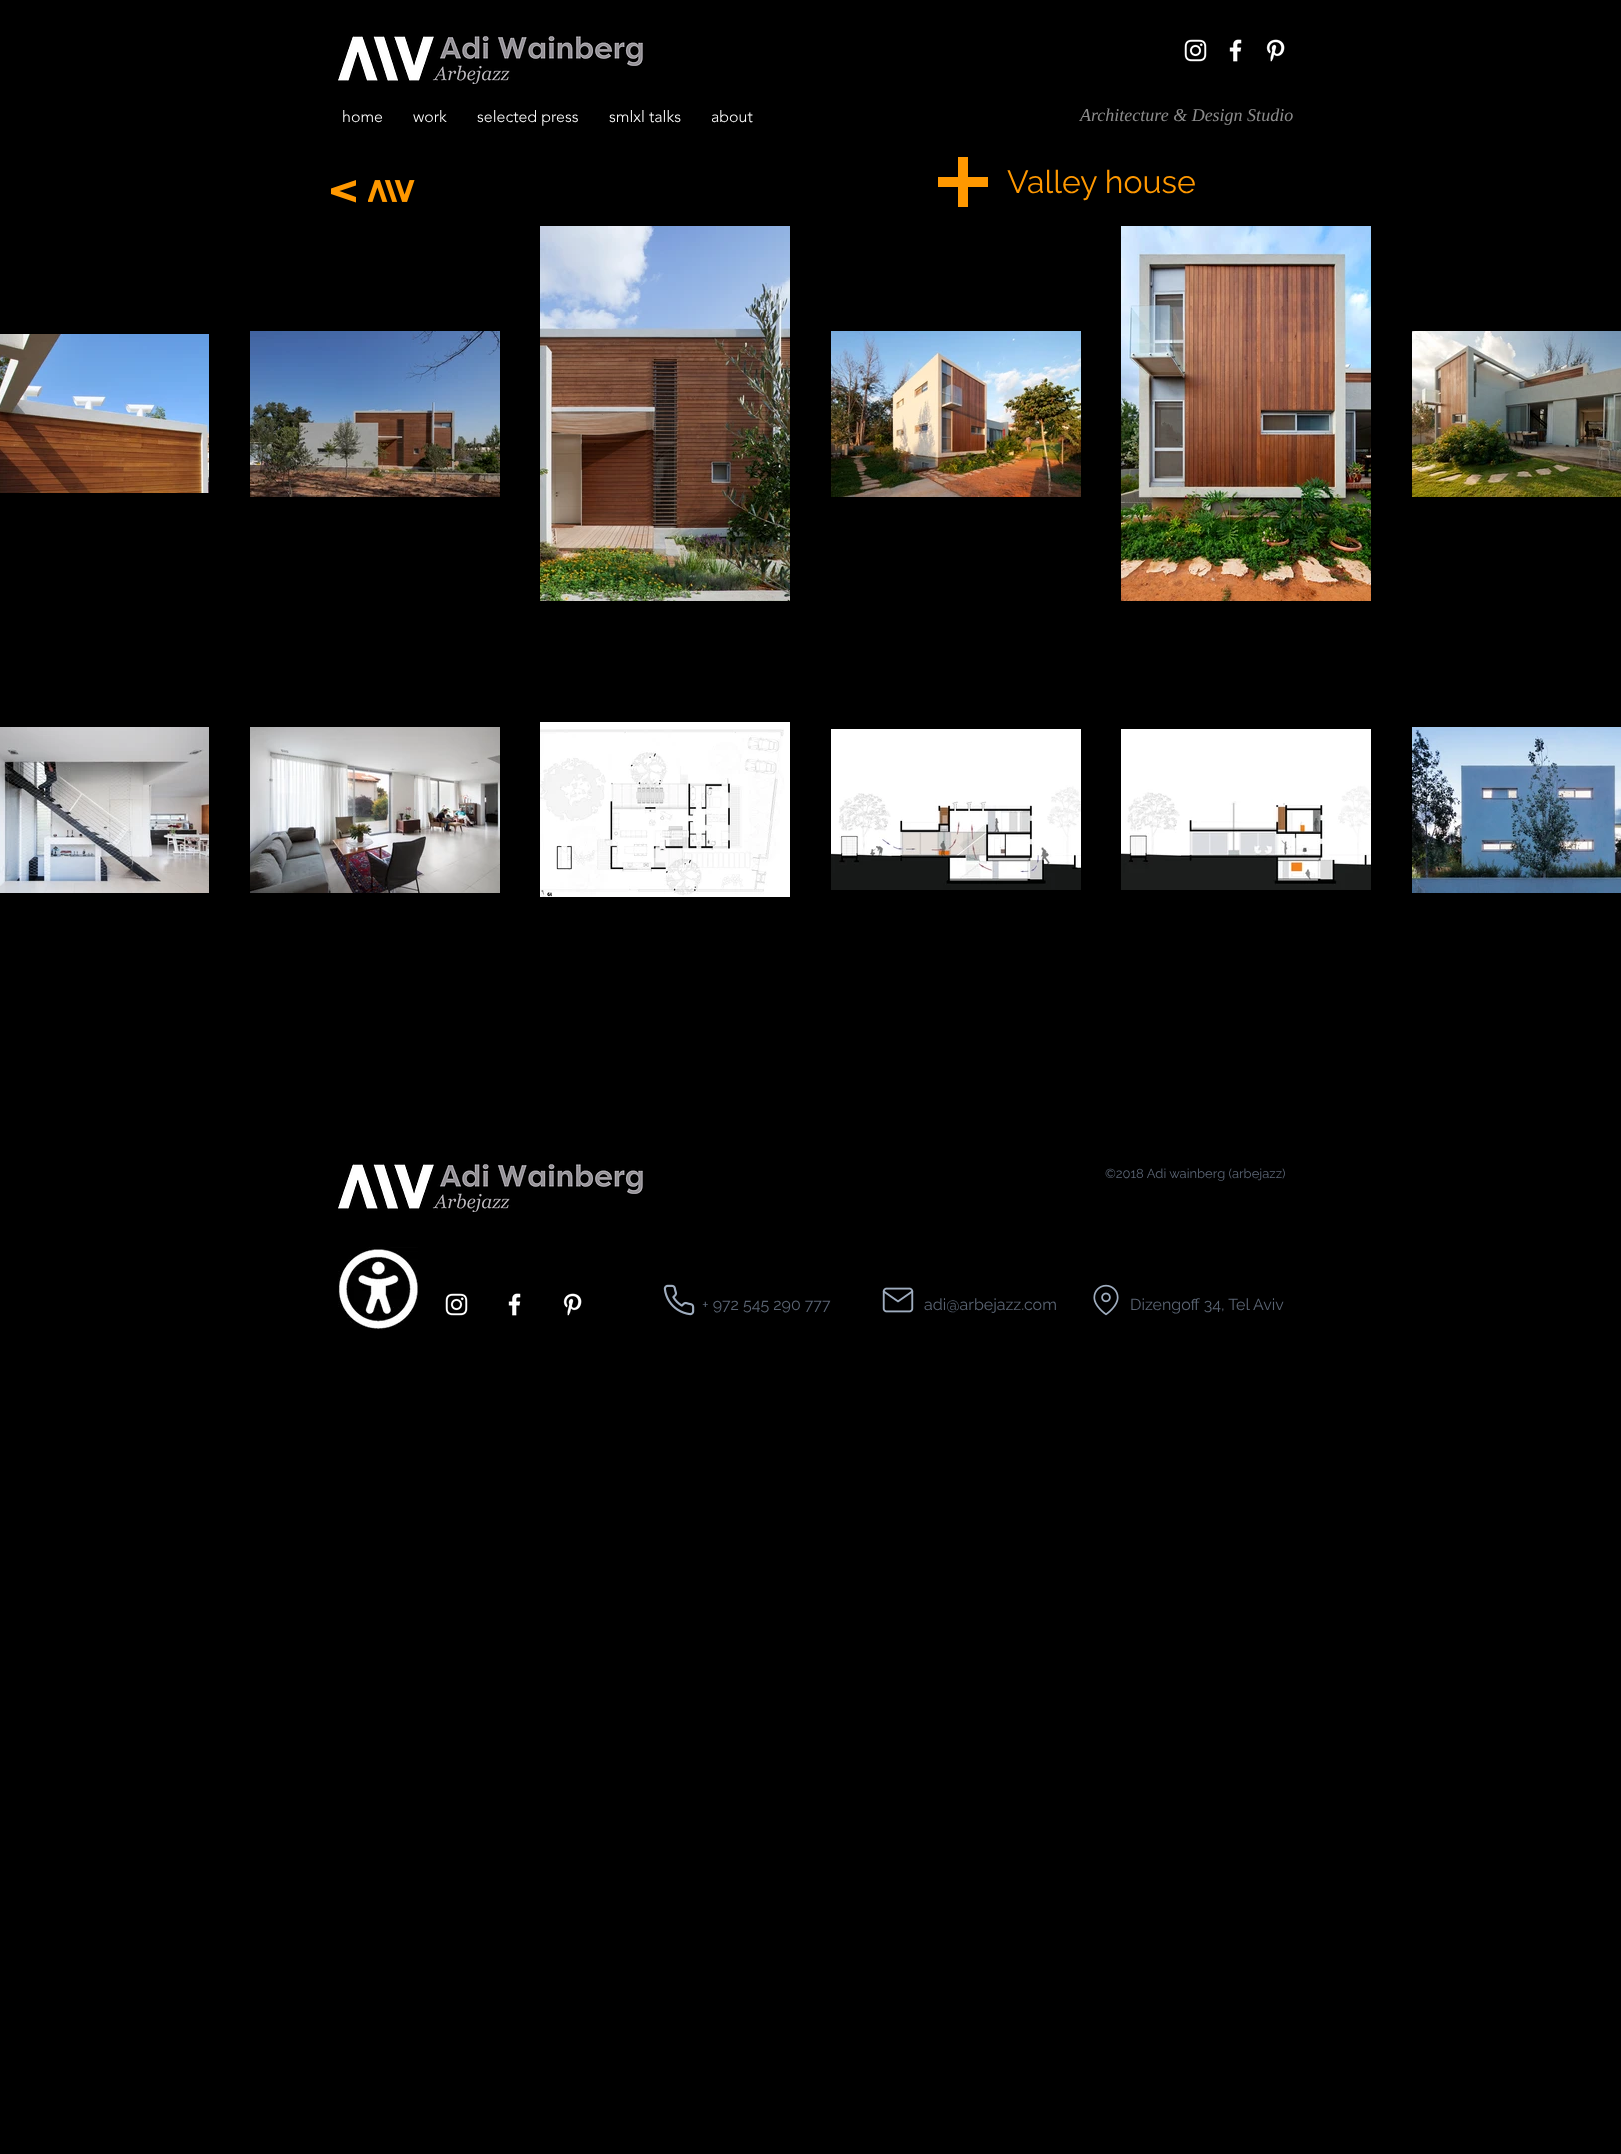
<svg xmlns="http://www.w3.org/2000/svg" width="1621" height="2154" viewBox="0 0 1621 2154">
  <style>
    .t1 { font: 300 16px 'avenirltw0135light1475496'; fill: #fff; }
    .t2 { font: italic 18px Liberation Serif; fill: #8c8c8c; }
    .t3 { font: 32px Raleway; fill: #ff9800; }
    .t4 { font: 13px Raleway; fill: #5a6473; }
    .t5 { font: 16px Raleway; fill: #5a6473; }
  </style>
  <rect width="100%" height="100%" fill="#000"/>
  <image x="338" y="36" width="305" height="48" href="images/1.png"/>
  <image x="1184" y="39" width="23" height="23" href="images/2.png"/>
  <image x="1229" y="39" width="13" height="23" href="images/3.png"/>
  <image x="1266" y="39" width="19" height="23" href="images/4.png"/>
  <text x="342" y="122" class="t1">home</text>
  <text x="413" y="122" class="t1">work</text>
  <text x="477" y="122" class="t1">selected press</text>
  <text x="609" y="122" class="t1">smlxl talks</text>
  <text x="711" y="122" class="t1">about</text>
  <text x="1080" y="121" class="t2">Architecture &amp; Design Studio</text>
  <path d="M356 185.5L339.5 191L356 197V202.5L331 194V188.5L356 180V185.5" fill="#ff9800" fill-rule="evenodd"/>
  <image x="368" y="180" width="47" height="22" href="images/5.png"/>
  <path d="M988 177H968V157H958V177H938V187H958V207H968V187H988Z" fill="#ff9800"/>
  <text x="1007" y="193" class="t3">Valley house</text>
  <image x="0" y="334" width="209" height="159" href="images/6.png"/>
  <image x="250" y="331" width="250" height="166" href="images/7.png"/>
  <image x="540" y="226" width="250" height="375" href="images/8.png"/>
  <image x="831" y="331" width="250" height="166" href="images/9.png"/>
  <image x="1121" y="226" width="250" height="375" href="images/10.png"/>
  <image x="1412" y="331" width="209" height="166" href="images/11.png"/>
  <image x="0" y="727" width="209" height="166" href="images/12.png"/>
  <image x="250" y="727" width="250" height="166" href="images/13.png"/>
  <image x="540" y="722" width="250" height="175" href="images/14.png"/>
  <image x="831" y="729" width="250" height="161" href="images/15.png"/>
  <image x="1121" y="729" width="250" height="161" href="images/16.png"/>
  <image x="1412" y="727" width="209" height="166" href="images/17.png"/>
  <image x="338" y="1164" width="305" height="48" href="images/1.png"/>
  <text x="1105" y="1178" class="t4">©2018 Adi wainberg (arbejazz)</text>
  <image x="338" y="1247" width="80" height="83" href="images/18.png"/>
  <image x="445" y="1293" width="23" height="23" href="images/2.png"/>
  <image x="508" y="1293" width="13" height="23" href="images/3.png"/>
  <image x="563" y="1293" width="19" height="23" href="images/4.png"/>
  <image x="663" y="1284" width="32" height="32" href="images/19.png"/>
  <text x="702" y="1310" class="t5">+ 972 545 290 777</text>
  <image x="882" y="1287" width="32" height="26" href="images/20.png"/>
  <text x="924" y="1310" class="t5">adi@arbejazz.com</text>
  <image x="1093" y="1284" width="26" height="32" href="images/21.png"/>
  <text x="1130" y="1310" class="t5">Dizengoff 34, Tel Aviv</text>
</svg>
